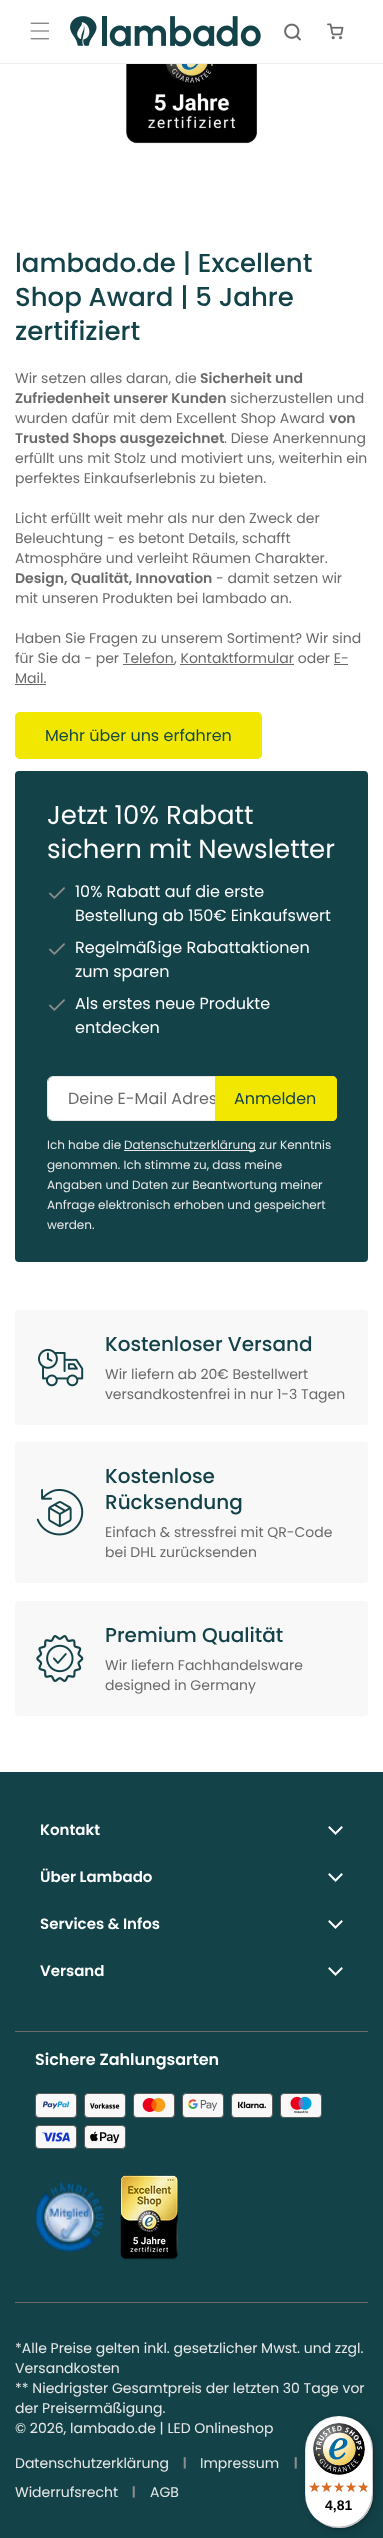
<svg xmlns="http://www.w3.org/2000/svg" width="383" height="2538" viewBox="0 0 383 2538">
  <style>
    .t1 { font: 500 26px Poppins; fill: #134249; }
    .t2 { font: 14px Poppins; fill: #6a6a6a; }
    .t3 { font: 600 14px Poppins; fill: #6a6a6a; }
    .t4 { font: 16px Poppins; fill: #134946; }
    .t5 { font: 26px Poppins; fill: #fff; }
    .t6 { font: 16px Poppins; fill: #fff; }
    .t7 { font: 16px Poppins; fill: #6a6a6a; }
    .t8 { font: 16px Poppins; fill: #134249; }
    .t9 { font: 12px Poppins; fill: #e8e8e8; }
    .t10 { font: 500 20px Poppins; fill: #134249; }
    .t11 { font: 600 15px Poppins; fill: #fff; }
    .t12 { font: 600 16px Poppins; fill: #fff; }
    .t13 { font: 14px Poppins; fill: #e8e8e8; }
    .t14 { font: bold 12px Poppins; fill: #8c8c8c; }
    .t15 { font: bold 14px Liberation Sans; fill: #000; }
  </style>
  <rect width="100%" height="100%" fill="#fff"/>
  <rect x="0" y="63" width="383" height="1" fill="#ecf0f0"/>
  <image x="30" y="22" width="20" height="18" href="images/1.png"/>
  <image x="70" y="16" width="191" height="31" href="images/2.png"/>
  <image x="284" y="23" width="17" height="18" href="images/3.png"/>
  <image x="327" y="23" width="17" height="17" href="images/4.png"/>
  <image x="126" y="64" width="132" height="80" href="images/5.png"/>
  <text x="15" y="272" class="t1">lambado.de | Excellent</text>
  <text x="15" y="306" class="t1">Shop Award | 5 Jahre</text>
  <text x="15" y="340" class="t1">zertifiziert</text>
  <text x="15" y="383" class="t2">Wir setzen alles daran, die</text>
  <text x="200" y="383" class="t3">Sicherheit und</text>
  <text x="15" y="403" class="t3">Zufriedenheit unserer Kunden</text>
  <text x="230" y="403" class="t2">sicherzustellen und</text>
  <text x="15" y="423" class="t2">wurden dafür mit dem Excellent Shop Award</text>
  <text x="329" y="423" class="t3">von</text>
  <text x="15" y="443" class="t3">Trusted Shops ausgezeichnet</text>
  <text x="224" y="443" class="t2">. Diese Anerkennung</text>
  <text x="15" y="463" class="t2">erfüllt uns mit Stolz und motiviert uns, weiterhin ein</text>
  <text x="15" y="483" class="t2">perfektes Einkaufserlebnis zu bieten.</text>
  <text x="15" y="523" class="t2">Licht erfüllt weit mehr als nur den Zweck der</text>
  <text x="15" y="543" class="t2">Beleuchtung - es betont Details, schafft</text>
  <text x="15" y="563" class="t2">Atmosphäre und verleiht Räumen Charakter.</text>
  <text x="15" y="583" class="t3">Design, Qualität, Innovation</text>
  <text x="216" y="583" class="t2">- damit setzen wir</text>
  <text x="15" y="603" class="t2">mit unseren Produkten bei lambado an.</text>
  <text x="15" y="643" class="t2">Haben Sie Fragen zu unserem Sortiment? Wir sind</text>
  <text x="15" y="663" class="t2">für Sie da - per Telefon</text>
  <rect x="123" y="664" width="51" height="1" fill="#6a6a6a"/>
  <text x="174" y="663" class="t2">, Kontaktformular oder E-</text>
  <rect x="180" y="664" width="114" height="1" fill="#6a6a6a"/>
  <text x="15" y="683" class="t2">Mail.</text>
  <rect x="334" y="664" width="14" height="1" fill="#6a6a6a"/>
  <rect x="15" y="684" width="31" height="1" fill="#6a6a6a"/>
  <rect x="15" y="712" width="247" height="47" rx="5" fill="#f2e701"/>
  <rect x="15.5" y="712.5" width="246" height="46" rx="4.5" fill="none" stroke="#f2e701"/>
  <text x="45" y="741" class="t4">Mehr über uns erfahren</text>
  <rect x="15" y="771" width="353" height="491" rx="4" fill="#134249"/>
  <text x="47" y="824" class="t5">Jetzt 10% Rabatt</text>
  <text x="47" y="858" class="t5">sichern mit Newsletter</text>
  <image x="49" y="887" width="16" height="12" href="images/6.png"/>
  <text x="75" y="897" class="t6">10% Rabatt auf die erste</text>
  <text x="75" y="921" class="t6">Bestellung ab 150€ Einkaufswert</text>
  <image x="49" y="943" width="16" height="12" href="images/6.png"/>
  <text x="75" y="953" class="t6">Regelmäßige Rabattaktionen</text>
  <text x="75" y="977" class="t6">zum sparen</text>
  <image x="49" y="999" width="16" height="12" href="images/6.png"/>
  <text x="75" y="1009" class="t6">Als erstes neue Produkte</text>
  <text x="75" y="1033" class="t6">entdecken</text>
  <path d="M53 1077H215V1120H53C50 1120 48 1118 48 1115V1082C48 1079 50 1077 53 1077Z" fill="#fff"/>
  <path d="M53 1076H215V1121H53C50 1121 47 1118 47 1115V1082C47 1079 50 1076 53 1076ZM53 1077H215V1120H53C50 1120 48 1118 48 1115V1082C48 1079 50 1077 53 1077Z" fill="#e8e8e8" fill-rule="evenodd"/>
  <text x="68" y="1104" class="t7">Deine E-Mail Adres</text>
  <path d="M215 1076H332C335 1076 337 1078 337 1081V1116C337 1119 335 1121 332 1121H215Z" fill="#f2e701"/>
  <rect x="215.5" y="1076.5" width="121" height="44" rx="4.5" fill="none" stroke="#f2e701"/>
  <text x="234" y="1104" class="t8">Anmelden</text>
  <text x="47" y="1149" class="t9">Ich habe die</text>
  <rect x="124" y="1150" width="132" height="1" fill="#e8e8e8"/>
  <text x="124" y="1149" class="t9">Datenschutzerklärung zur Kenntnis</text>
  <text x="47" y="1169" class="t9">genommen. Ich stimme zu, dass meine</text>
  <text x="47" y="1189" class="t9">Angaben und Daten zur Beantwortung meiner</text>
  <text x="47" y="1209" class="t9">Anfrage elektronisch erhoben und gespeichert</text>
  <text x="47" y="1229" class="t9">werden.</text>
  <rect x="15" y="1310" width="353" height="115" rx="4" fill="#f8f8f8"/>
  <image x="38" y="1348" width="46" height="39" href="images/7.png"/>
  <text x="105" y="1351" class="t10">Kostenloser Versand</text>
  <text x="105" y="1379" class="t2">Wir liefern ab 20€ Bestellwert</text>
  <text x="105" y="1399" class="t2">versandkostenfrei in nur 1-3 Tagen</text>
  <rect x="15" y="1442" width="353" height="141" rx="4" fill="#f8f8f8"/>
  <image x="36" y="1489" width="48" height="47" href="images/8.png"/>
  <text x="105" y="1483" class="t10">Kostenlose</text>
  <text x="105" y="1509" class="t10">Rücksendung</text>
  <text x="105" y="1537" class="t2">Einfach &amp; stressfrei mit QR-Code</text>
  <text x="105" y="1557" class="t2">bei DHL zurücksenden</text>
  <rect x="15" y="1601" width="353" height="115" rx="4" fill="#f8f8f8"/>
  <image x="36" y="1635" width="48" height="47" href="images/9.png"/>
  <text x="105" y="1642" class="t10">Premium Qualität</text>
  <text x="105" y="1670" class="t2">Wir liefern Fachhandelsware</text>
  <text x="105" y="1690" class="t2">designed in Germany</text>
  <rect x="0" y="1772" width="383" height="766" fill="#134249"/>
  <text x="40" y="1835" class="t11">Kontakt</text>
  <path d="M329.5 1827.5L335.5 1833.5L341.5 1827.5" fill="none" stroke="#fff" stroke-width="2" stroke-linecap="square"/>
  <text x="40" y="1882" class="t11">Über Lambado</text>
  <path d="M329.5 1874.5L335.5 1880.5L341.5 1874.5" fill="none" stroke="#fff" stroke-width="2" stroke-linecap="square"/>
  <text x="40" y="1929" class="t11">Services &amp; Infos</text>
  <path d="M329.5 1921.5L335.5 1927.5L341.5 1921.5" fill="none" stroke="#fff" stroke-width="2" stroke-linecap="square"/>
  <text x="40" y="1976" class="t11">Versand</text>
  <path d="M329.5 1968.5L335.5 1974.5L341.5 1968.5" fill="none" stroke="#fff" stroke-width="2" stroke-linecap="square"/>
  <rect x="15" y="2031" width="353" height="1" fill="#6a6a6a"/>
  <rect x="15" y="2302" width="353" height="1" fill="#6a6a6a"/>
  <text x="35" y="2065" class="t12">Sichere Zahlungsarten</text>
  <rect x="35.5" y="2093.5" width="41" height="24" rx="3.5" fill="#f8f8f8" stroke="#5a5a5a"/>
  <image x="42" y="2101" width="28" height="8" href="images/10.png"/>
  <rect x="84.5" y="2093.5" width="41" height="24" rx="3.5" fill="#f8f8f8" stroke="#5a5a5a"/>
  <image x="90" y="2103" width="30" height="6" href="images/11.png"/>
  <rect x="133.5" y="2093.5" width="41" height="24" rx="3.5" fill="#f8f8f8" stroke="#5a5a5a"/>
  <image x="142" y="2098" width="24" height="14" href="images/12.png"/>
  <rect x="182.5" y="2093.5" width="41" height="24" rx="3.5" fill="#f8f8f8" stroke="#5a5a5a"/>
  <image x="188" y="2099" width="30" height="12" href="images/13.png"/>
  <rect x="231.5" y="2093.5" width="41" height="24" rx="3.5" fill="#f8f8f8" stroke="#5a5a5a"/>
  <image x="238" y="2101" width="28" height="8" href="images/14.png"/>
  <rect x="280.5" y="2093.5" width="41" height="24" rx="3.5" fill="#f8f8f8" stroke="#5a5a5a"/>
  <image x="290" y="2096" width="22" height="18" href="images/15.png"/>
  <rect x="35.5" y="2125.5" width="41" height="23" rx="3.5" fill="#f8f8f8" stroke="#5a5a5a"/>
  <image x="42" y="2132" width="28" height="10" href="images/16.png"/>
  <rect x="84.5" y="2125.5" width="41" height="23" rx="3.5" fill="#f8f8f8" stroke="#5a5a5a"/>
  <image x="90" y="2131" width="30" height="12" href="images/17.png"/>
  <image x="35" y="2181" width="69" height="71" href="images/18.png"/>
  <image x="120" y="2175" width="58" height="85" href="images/19.png"/>
  <text x="15" y="2353" class="t13">*Alle Preise gelten inkl. gesetzlicher Mwst. und zzgl.</text>
  <text x="15" y="2373" class="t13">Versandkosten</text>
  <text x="15" y="2393" class="t13">** Niedrigster Gesamtpreis der letzten 30 Tage vor</text>
  <text x="15" y="2413" class="t13">der Preisermäßigung.</text>
  <text x="15" y="2433" class="t13">© 2026, lambado.de | LED Onlineshop</text>
  <text x="15" y="2468" class="t13">Datenschutzerklärung</text>
  <text x="183" y="2467" class="t14">|</text>
  <text x="200" y="2468" class="t13">Impressum</text>
  <text x="294" y="2467" class="t14">|</text>
  <text x="15" y="2497" class="t13">Widerrufsrecht</text>
  <text x="132" y="2496" class="t14">|</text>
  <text x="150" y="2497" class="t13">AGB</text>
  <rect x="308" y="2419" width="68" height="112" rx="34" fill="#00000026" filter="blur(4px)"/>
  <rect x="306" y="2417" width="68" height="112" rx="34" fill="#00000026" filter="blur(1px)"/>
  <rect x="305" y="2416" width="68" height="112" rx="34" fill="#fff"/>
  <path d="M340 2417C348 2417 356 2420 362 2425C345 2410 317 2416 308 2437C303 2447 305 2461 305 2472C305 2487 302 2504 314 2517C309 2511 306 2503 306 2495V2451C306 2432 321 2417 340 2417Z" fill="#0000001a"/>
  <path d="M316 2519C333 2534 361 2528 370 2507C375 2497 373 2483 373 2472C373 2457 376 2440 364 2427C374 2440 372 2456 372 2471C372 2482 374 2496 369 2506C361 2527 334 2533 316 2519Z" fill="#00000033"/>
  <path d="M312 2515C319 2523 328 2528 339 2528C358 2528 373 2513 373 2494V2450C373 2439 368 2430 360 2423C367 2430 372 2439 372 2449V2493C372 2512 357 2527 338 2527C328 2527 319 2522 312 2515Z" fill="#32323233"/>
  <path d="M339 2416C357 2416 372 2431 372 2450V2494C372 2512 357 2528 338 2528H339C358 2528 373 2513 373 2494V2450C373 2431 358 2416 339 2416Z" fill="#ffffff4d"/>
  <image x="313" y="2423" width="52" height="52" href="images/20.png"/>
  <image x="309" y="2482" width="11" height="10" href="images/21.png"/>
  <image x="322" y="2482" width="10" height="10" href="images/22.png"/>
  <image x="334" y="2482" width="10" height="10" href="images/23.png"/>
  <image x="346" y="2482" width="11" height="10" href="images/24.png"/>
  <image x="358" y="2482" width="11" height="10" href="images/24.png"/>
  <image x="309" y="2482" width="11" height="10" href="images/25.png"/>
  <image x="321" y="2482" width="11" height="10" href="images/26.png"/>
  <image x="334" y="2482" width="10" height="10" href="images/27.png"/>
  <image x="346" y="2482" width="10" height="10" href="images/28.png"/>
  <image x="358" y="2482" width="9" height="10" href="images/29.png"/>
  <text x="325" y="2510" class="t15">4,81</text>
</svg>
